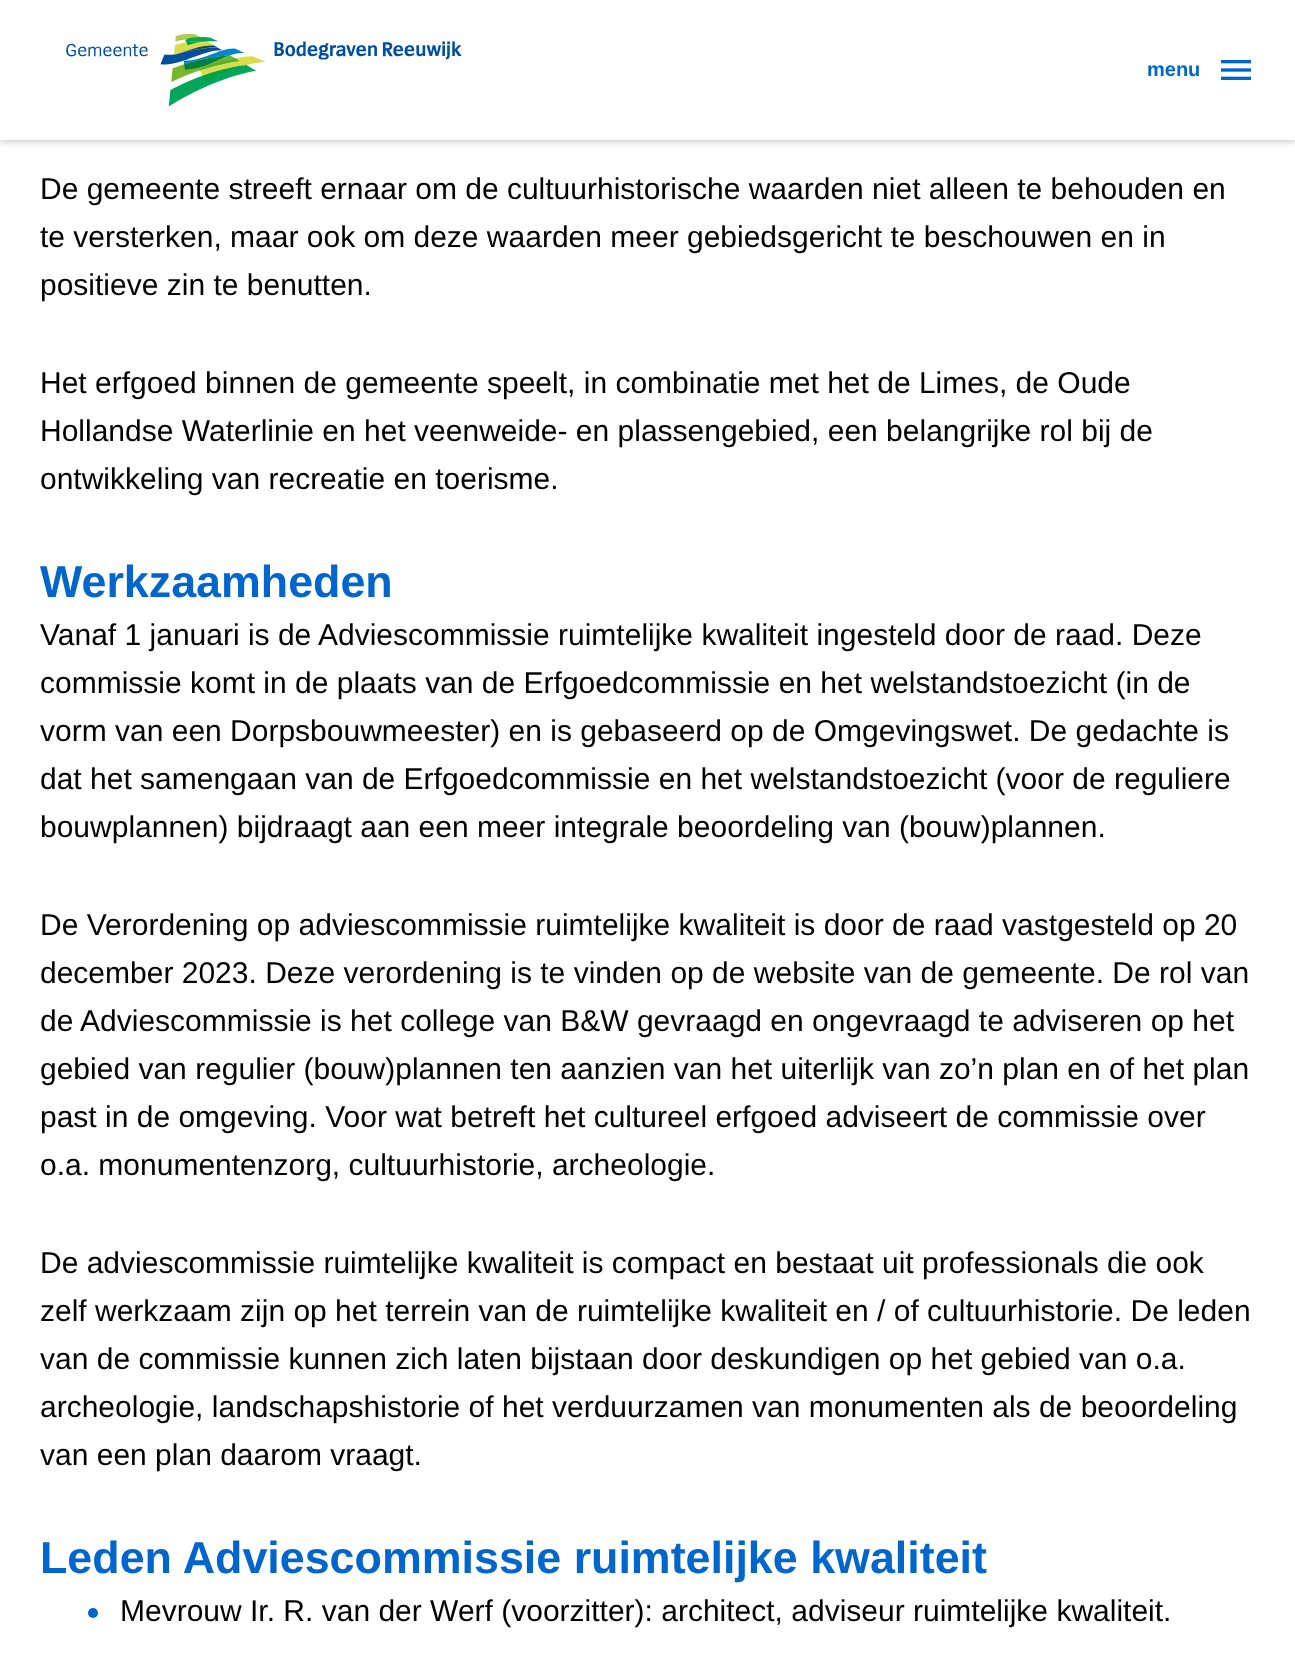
<svg xmlns="http://www.w3.org/2000/svg" width="1295" height="1655" viewBox="0 0 1295 1655">
  <style>
    .t1 { font: bold 20px Liberation Sans; fill: #06c; }
    .t2 { font: 30px Liberation Sans; fill: #000; }
    .t3 { font: bold 44.8px Liberation Sans; fill: #06c; }
  </style>
  <rect width="100%" height="100%" fill="#fff"/>
  <rect x="0" y="2" width="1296" height="140" fill="#00000033" filter="blur(3px)"/>
  <rect x="0" y="0" width="1295" height="140" fill="#fff"/>
  <image x="66" y="34" width="396" height="73" href="images/1.png"/>
  <text x="1147" y="76" class="t1">menu</text>
  <image x="1221" y="60" width="30" height="20" href="images/2.png"/>
  <text x="40" y="199" class="t2">De gemeente streeft ernaar om de cultuurhistorische waarden niet alleen te behouden en</text>
  <text x="40" y="247" class="t2">te versterken, maar ook om deze waarden meer gebiedsgericht te beschouwen en in</text>
  <text x="40" y="295" class="t2">positieve zin te benutten.</text>
  <text x="40" y="393" class="t2">Het erfgoed binnen de gemeente speelt, in combinatie met het de Limes, de Oude</text>
  <text x="40" y="441" class="t2">Hollandse Waterlinie en het veenweide- en plassengebied, een belangrijke rol bij de</text>
  <text x="40" y="489" class="t2">ontwikkeling van recreatie en toerisme.</text>
  <text x="40" y="597" class="t3">Werkzaamheden</text>
  <text x="40" y="645" class="t2">Vanaf 1 januari is de Adviescommissie ruimtelijke kwaliteit ingesteld door de raad. Deze</text>
  <text x="40" y="693" class="t2">commissie komt in de plaats van de Erfgoedcommissie en het welstandstoezicht (in de</text>
  <text x="40" y="741" class="t2">vorm van een Dorpsbouwmeester) en is gebaseerd op de Omgevingswet. De gedachte is</text>
  <text x="40" y="789" class="t2">dat het samengaan van de Erfgoedcommissie en het welstandstoezicht (voor de reguliere</text>
  <text x="40" y="837" class="t2">bouwplannen) bijdraagt aan een meer integrale beoordeling van (bouw)plannen.</text>
  <text x="40" y="935" class="t2">De Verordening op adviescommissie ruimtelijke kwaliteit is door de raad vastgesteld op 20</text>
  <text x="40" y="983" class="t2">december 2023. Deze verordening is te vinden op de website van de gemeente. De rol van</text>
  <text x="40" y="1031" class="t2">de Adviescommissie is het college van B&amp;W gevraagd en ongevraagd te adviseren op het</text>
  <text x="40" y="1079" class="t2">gebied van regulier (bouw)plannen ten aanzien van het uiterlijk van zo’n plan en of het plan</text>
  <text x="40" y="1127" class="t2">past in de omgeving. Voor wat betreft het cultureel erfgoed adviseert de commissie over</text>
  <text x="40" y="1175" class="t2">o.a. monumentenzorg, cultuurhistorie, archeologie.</text>
  <text x="40" y="1273" class="t2">De adviescommissie ruimtelijke kwaliteit is compact en bestaat uit professionals die ook</text>
  <text x="40" y="1321" class="t2">zelf werkzaam zijn op het terrein van de ruimtelijke kwaliteit en / of cultuurhistorie. De leden</text>
  <text x="40" y="1369" class="t2">van de commissie kunnen zich laten bijstaan door deskundigen op het gebied van o.a.</text>
  <text x="40" y="1417" class="t2">archeologie, landschapshistorie of het verduurzamen van monumenten als de beoordeling</text>
  <text x="40" y="1465" class="t2">van een plan daarom vraagt.</text>
  <text x="40" y="1573" class="t3">Leden Adviescommissie ruimtelijke kwaliteit</text>
  <circle cx="93" cy="1613" r="5" fill="#06c"/>
  <text x="120" y="1621" class="t2">Mevrouw Ir. R. van der Werf (voorzitter): architect, adviseur ruimtelijke kwaliteit.</text>
</svg>
